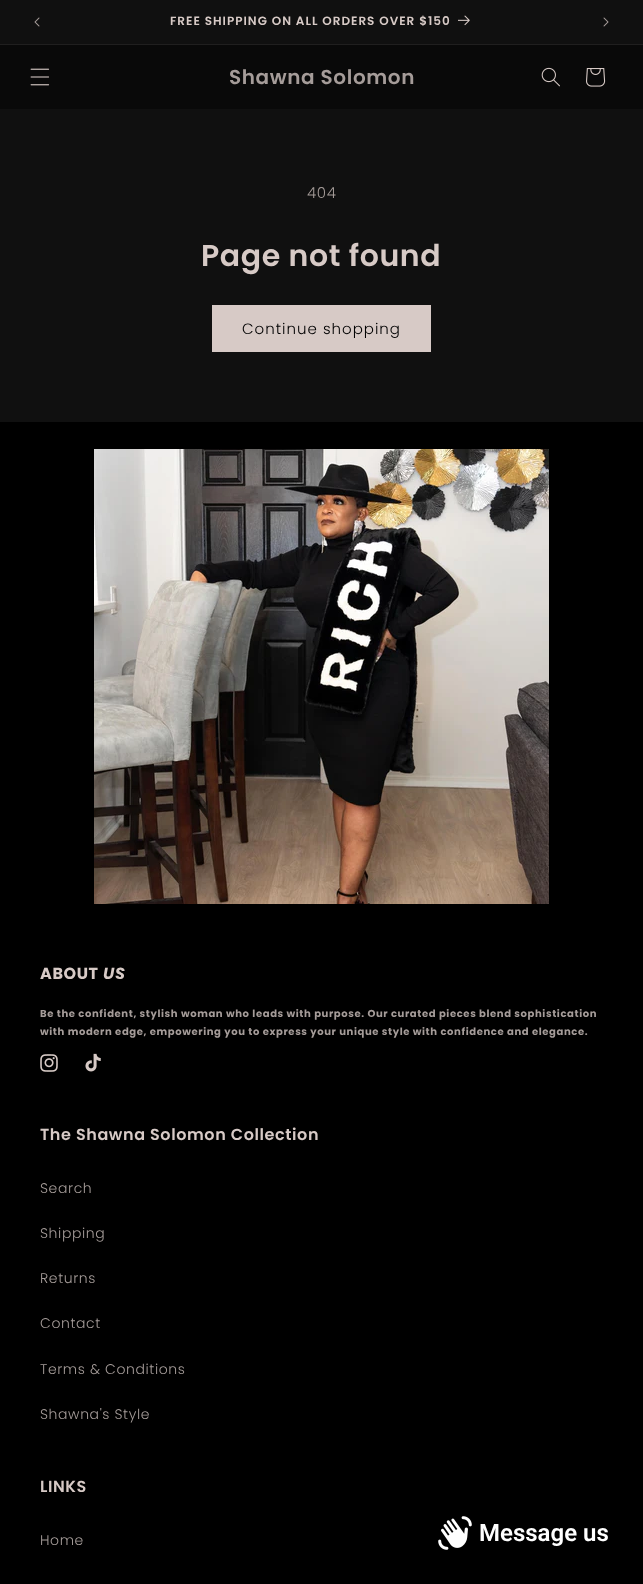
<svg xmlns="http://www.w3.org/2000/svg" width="643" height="1584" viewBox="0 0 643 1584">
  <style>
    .t1 { font: 600 12px Poppins; letter-spacing: 1px; fill: #d7cac6; }
    .t2 { font: 600 20px Poppins; letter-spacing: 0.6px; fill: #a59c99; }
    .t3 { font: 300 15px Poppins; letter-spacing: 0.6px; fill: #a59c99; }
    .t4 { font: 600 30px Poppins; letter-spacing: 0.6px; fill: #d7cac6; }
    .t5 { font: 300 15px Poppins; letter-spacing: 1px; fill: #000; }
    .t6 { font: bold 16px Poppins; letter-spacing: 0.6px; fill: #d7cac6; }
    .t7 { font: italic bold 16px Poppins; letter-spacing: 0.6px; fill: #d7cac6; }
    .t8 { font: bold 10.05px Poppins; letter-spacing: 0.6px; fill: #a59c99; }
    .t9 { font: 600 16px Poppins; letter-spacing: 0.6px; fill: #d7cac6; }
    .t10 { font: 300 14px Poppins; letter-spacing: 0.6px; fill: #a59c99; }
    .t11 { font: 600 24px Roboto; fill: #fff; }
  </style>
  <rect width="100%" height="100%" fill="#101010"/>
  <rect x="0" y="44" width="643" height="1" fill="#201f1f"/>
  <image x="34" y="17" width="6" height="10" href="images/1.png"/>
  <text x="170" y="25" class="t1">FREE SHIPPING ON ALL ORDERS OVER $150</text>
  <image x="458" y="15" width="12" height="11" href="images/2.png"/>
  <image x="603" y="17" width="6" height="10" href="images/3.png"/>
  <rect x="0" y="45" width="643" height="64" fill="#090909"/>
  <image x="30" y="68" width="20" height="18" href="images/4.png"/>
  <text x="229" y="84" class="t2">Shawna Solomon</text>
  <image x="541" y="67" width="19" height="20" href="images/5.png"/>
  <image x="586" y="68" width="20" height="19" href="images/6.png"/>
  <text x="307" y="198" class="t3">404</text>
  <text x="201" y="266" class="t4">Page not found</text>
  <rect x="212" y="305" width="219" height="47" fill="#d7cac6"/>
  <text x="242" y="334" class="t5">Continue shopping</text>
  <rect x="0" y="422" width="643" height="1162" fill="#000"/>
  <image x="94" y="449" width="455" height="455" href="images/7.png"/>
  <text x="40" y="979" class="t6">ABOUT</text>
  <text x="103" y="979" class="t7">US</text>
  <text x="40" y="1017" class="t8">Be the confident, stylish woman who leads with purpose. Our curated pieces blend sophistication</text>
  <text x="40" y="1035" class="t8">with modern edge, empowering you to express your unique style with confidence and elegance.</text>
  <image x="40" y="1054" width="18" height="18" href="images/8.png"/>
  <image x="85" y="1053" width="16" height="19" href="images/9.png"/>
  <text x="40" y="1140" class="t9">The Shawna Solomon Collection</text>
  <text x="40" y="1193" class="t10">Search</text>
  <text x="40" y="1238" class="t10">Shipping</text>
  <text x="40" y="1283" class="t10">Returns</text>
  <text x="40" y="1328" class="t10">Contact</text>
  <text x="40" y="1374" class="t10">Terms &amp; Conditions</text>
  <text x="40" y="1419" class="t10">Shawna's Style</text>
  <text x="40" y="1492" class="t9">LINKS</text>
  <text x="40" y="1545" class="t10">Home</text>
  <image x="438" y="1516" width="34" height="34" href="images/10.png"/>
  <text x="479" y="1541" class="t11">Message us</text>
</svg>
